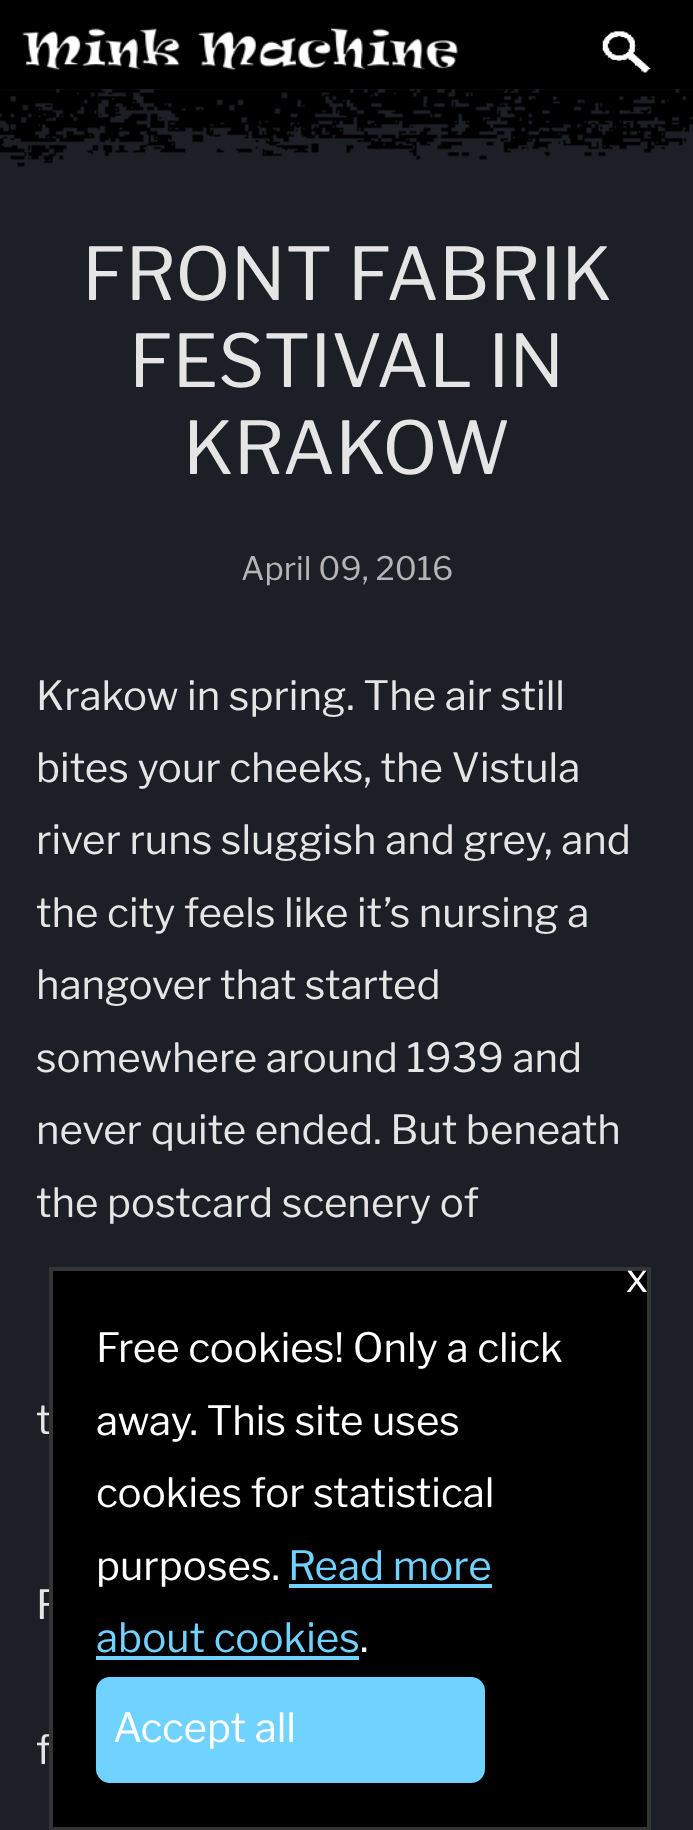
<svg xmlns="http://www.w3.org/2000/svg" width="693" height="1830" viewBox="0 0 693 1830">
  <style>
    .t1 { font: 100 72.5px Libre Franklin; fill: #e5e5e5; }
    .t2 { font: 100 32.25px Libre Franklin; fill: #b5b5b5; }
    .t3 { font: 100 40.25px Libre Franklin; fill: #e5e5e5; }
    .t4 { font: 100 40.25px Libre Franklin; fill: #fff; }
    .t5 { font: 100 40.25px Libre Franklin; fill: #6fd2ff; }
  </style>
  <rect width="100%" height="100%" fill="#000"/>
  <image x="22" y="27" width="436" height="43" href="images/1.png"/>
  <image x="602" y="31" width="49" height="42" href="images/2.png"/>
  <rect x="0" y="89" width="693" height="1741" fill="#1d1f26"/>
  <image x="0" y="89" width="693" height="78" href="images/3.png"/>
  <text x="82" y="300" class="t1">FRONT FABRIK</text>
  <text x="129" y="387" class="t1">FESTIVAL IN</text>
  <text x="183" y="474" class="t1">KRAKOW</text>
  <text x="241" y="580" class="t2">April 09, 2016</text>
  <text x="36" y="710" class="t3">Krakow in spring. The air still</text>
  <text x="36" y="782" class="t3">bites your cheeks, the Vistula</text>
  <text x="36" y="854" class="t3">river runs sluggish and grey, and</text>
  <text x="36" y="927" class="t3">the city feels like it’s nursing a</text>
  <text x="36" y="999" class="t3">hangover that started</text>
  <text x="36" y="1072" class="t3">somewhere around 1939 and</text>
  <text x="36" y="1144" class="t3">never quite ended. But beneath</text>
  <text x="36" y="1217" class="t3">the postcard scenery of</text>
  <text x="36" y="1434" class="t3">t</text>
  <text x="36" y="1619" class="t3">F</text>
  <text x="36" y="1764" class="t3">f</text>
  <rect x="51" y="1269" width="598" height="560" fill="#000" stroke="#343434" stroke-width="4"/>
  <text x="626" y="1292" class="t4">x</text>
  <text x="96" y="1362" class="t4">Free cookies! Only a click</text>
  <text x="96" y="1435" class="t4">away. This site uses</text>
  <text x="96" y="1507" class="t4">cookies for statistical</text>
  <text x="96" y="1580" class="t4">purposes.</text>
  <text x="288" y="1580" class="t5">Read more</text>
  <rect x="289" y="1584" width="203" height="4" fill="#6fd2ff"/>
  <text x="96" y="1652" class="t5">about cookies</text>
  <rect x="96" y="1656" width="263" height="4" fill="#6fd2ff"/>
  <text x="360" y="1652" class="t4">.</text>
  <rect x="96" y="1677" width="389" height="106" rx="14" fill="#6fd2ff"/>
  <text x="113" y="1742" class="t4">Accept all</text>
</svg>
